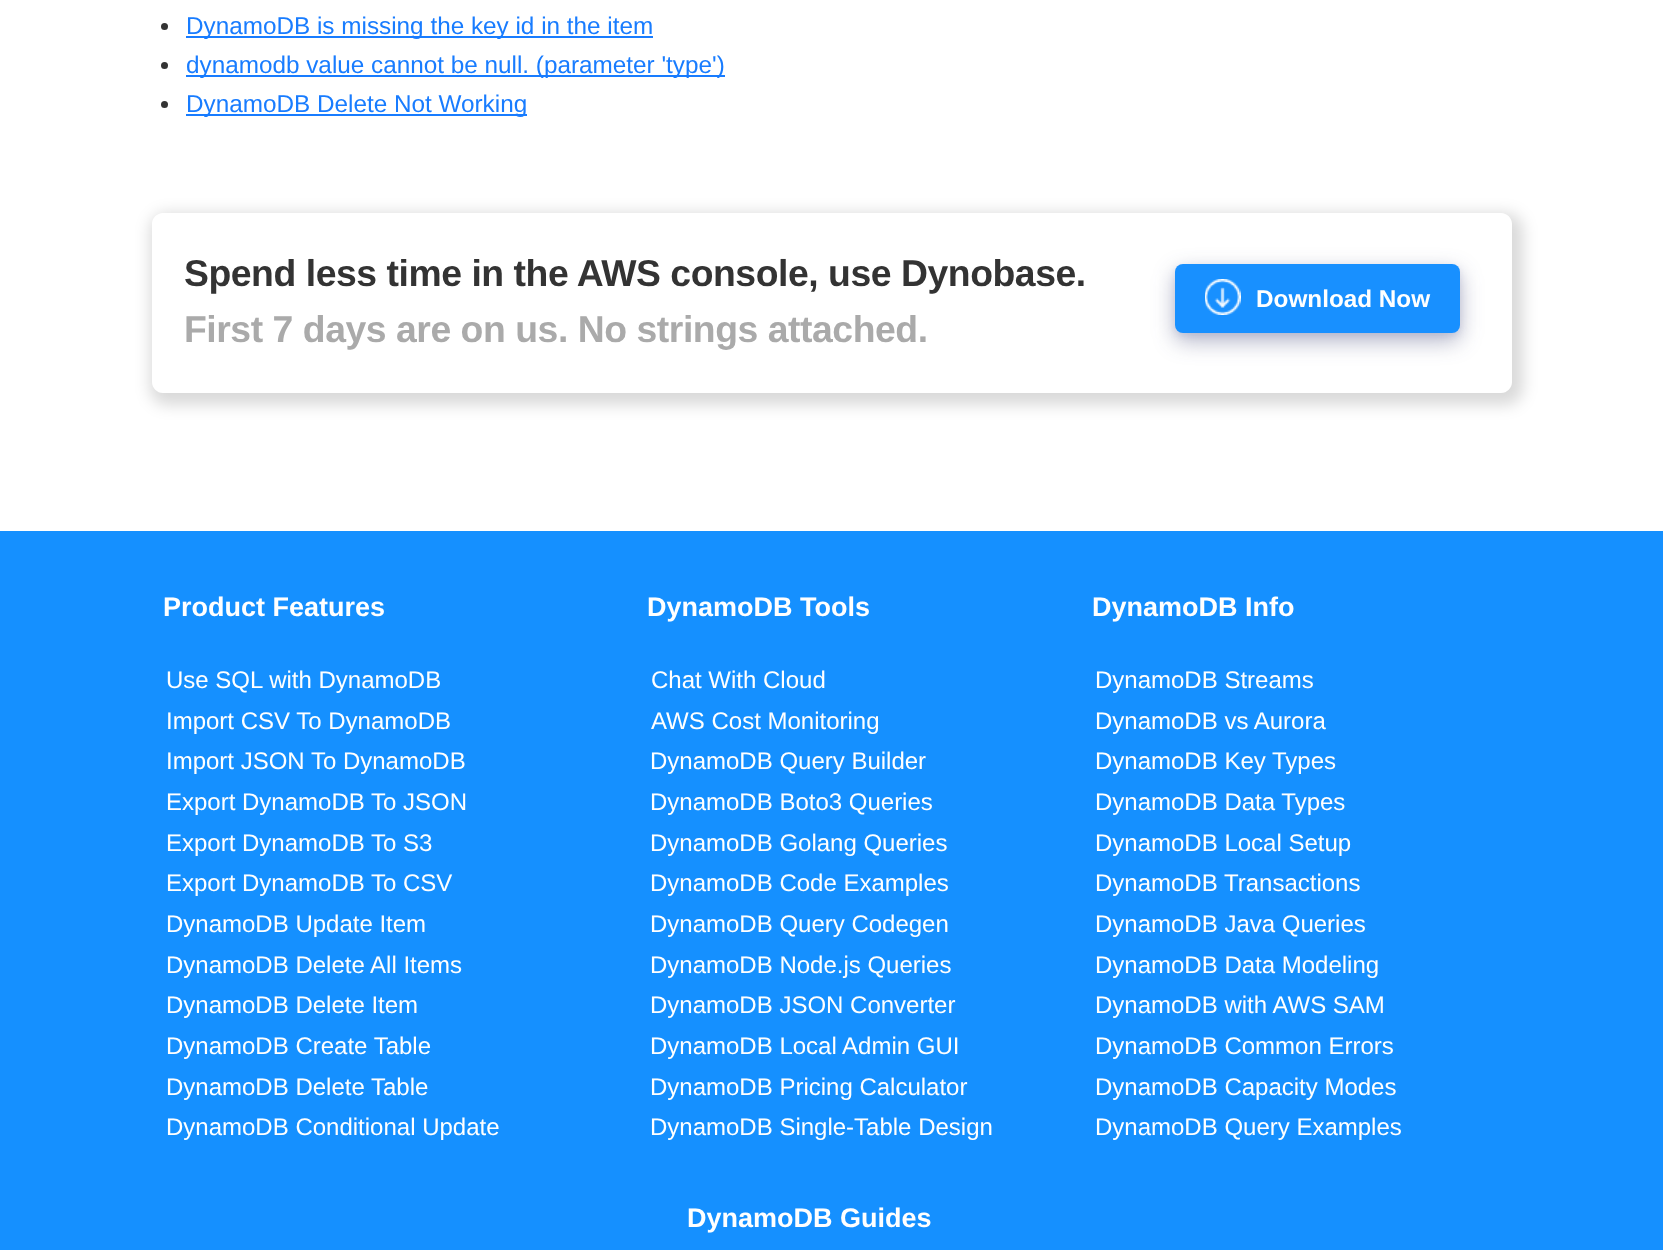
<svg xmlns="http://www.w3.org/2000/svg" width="1663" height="1250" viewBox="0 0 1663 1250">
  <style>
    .t1 { font: 24.3px Liberation Sans; fill: #187cff; }
    .t2 { font: bold 37.35px Liberation Sans; letter-spacing: -0.45px; fill: #333; }
    .t3 { font: bold 37.35px Liberation Sans; letter-spacing: -0.45px; fill: #aaa; }
    .t4 { font: bold 24.3px Liberation Sans; fill: #fff; }
    .t5 { font: bold 27px Liberation Sans; fill: #fff; }
    .t6 { font: 24px Liberation Sans; fill: #fff; }
  </style>
  <defs>
    <clipPath id="clip1"><path d="M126 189H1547V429H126ZM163 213H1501C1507 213 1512 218 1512 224V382C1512 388 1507 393 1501 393H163C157 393 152 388 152 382V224C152 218 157 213 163 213Z" clip-rule="evenodd"/></clipPath>
  </defs>
  <rect width="100%" height="100%" fill="#fff"/>
  <circle cx="164.5" cy="26.5" r="3.5" fill="#333"/>
  <rect x="186" y="36" width="467" height="2" fill="#187cff"/>
  <text x="186" y="34" class="t1">DynamoDB is missing the key id in the item</text>
  <circle cx="164.5" cy="65.5" r="3.5" fill="#333"/>
  <rect x="186" y="75" width="539" height="2" fill="#187cff"/>
  <text x="186" y="73" class="t1">dynamodb value cannot be null. (parameter 'type')</text>
  <circle cx="164.5" cy="104.5" r="3.5" fill="#333"/>
  <rect x="186" y="114" width="341" height="2" fill="#187cff"/>
  <text x="186" y="112" class="t1">DynamoDB Delete Not Working</text>
  <g clip-path="url(#clip1)">
    <rect x="150" y="213" width="1373" height="192" rx="17" fill="#00000026" filter="blur(7.5px)"/>
  </g>
  <text x="184" y="286" class="t2">Spend less time in the AWS console, use Dynobase.</text>
  <text x="184" y="342" class="t3">First 7 days are on us. No strings attached.</text>
  <rect x="1175" y="272" width="285" height="69" rx="8" fill="#252c6159" filter="blur(11px)"/>
  <rect x="1175" y="267" width="285" height="69" rx="8" fill="#8890c333" filter="blur(3px)"/>
  <rect x="1175" y="264" width="285" height="69" rx="8" fill="#1890ff"/>
  <image x="1205" y="279" width="36" height="36" href="images/1.png"/>
  <text x="1256" y="307" class="t4">Download Now</text>
  <rect x="0" y="531" width="1663" height="719" fill="#1590ff"/>
  <text x="163" y="616" class="t5">Product Features</text>
  <text x="166" y="688" class="t6">Use SQL with DynamoDB</text>
  <text x="166" y="729" class="t6">Import CSV To DynamoDB</text>
  <text x="166" y="769" class="t6">Import JSON To DynamoDB</text>
  <text x="166" y="810" class="t6">Export DynamoDB To JSON</text>
  <text x="166" y="851" class="t6">Export DynamoDB To S3</text>
  <text x="166" y="891" class="t6">Export DynamoDB To CSV</text>
  <text x="166" y="932" class="t6">DynamoDB Update Item</text>
  <text x="166" y="973" class="t6">DynamoDB Delete All Items</text>
  <text x="166" y="1013" class="t6">DynamoDB Delete Item</text>
  <text x="166" y="1054" class="t6">DynamoDB Create Table</text>
  <text x="166" y="1095" class="t6">DynamoDB Delete Table</text>
  <text x="166" y="1135" class="t6">DynamoDB Conditional Update</text>
  <text x="647" y="616" class="t5">DynamoDB Tools</text>
  <text x="651" y="688" class="t6">Chat With Cloud</text>
  <text x="651" y="729" class="t6">AWS Cost Monitoring</text>
  <text x="650" y="769" class="t6">DynamoDB Query Builder</text>
  <text x="650" y="810" class="t6">DynamoDB Boto3 Queries</text>
  <text x="650" y="851" class="t6">DynamoDB Golang Queries</text>
  <text x="650" y="891" class="t6">DynamoDB Code Examples</text>
  <text x="650" y="932" class="t6">DynamoDB Query Codegen</text>
  <text x="650" y="973" class="t6">DynamoDB Node.js Queries</text>
  <text x="650" y="1013" class="t6">DynamoDB JSON Converter</text>
  <text x="650" y="1054" class="t6">DynamoDB Local Admin GUI</text>
  <text x="650" y="1095" class="t6">DynamoDB Pricing Calculator</text>
  <text x="650" y="1135" class="t6">DynamoDB Single-Table Design</text>
  <text x="1092" y="616" class="t5">DynamoDB Info</text>
  <text x="1095" y="688" class="t6">DynamoDB Streams</text>
  <text x="1095" y="729" class="t6">DynamoDB vs Aurora</text>
  <text x="1095" y="769" class="t6">DynamoDB Key Types</text>
  <text x="1095" y="810" class="t6">DynamoDB Data Types</text>
  <text x="1095" y="851" class="t6">DynamoDB Local Setup</text>
  <text x="1095" y="891" class="t6">DynamoDB Transactions</text>
  <text x="1095" y="932" class="t6">DynamoDB Java Queries</text>
  <text x="1095" y="973" class="t6">DynamoDB Data Modeling</text>
  <text x="1095" y="1013" class="t6">DynamoDB with AWS SAM</text>
  <text x="1095" y="1054" class="t6">DynamoDB Common Errors</text>
  <text x="1095" y="1095" class="t6">DynamoDB Capacity Modes</text>
  <text x="1095" y="1135" class="t6">DynamoDB Query Examples</text>
  <text x="687" y="1227" class="t5">DynamoDB Guides</text>
</svg>
